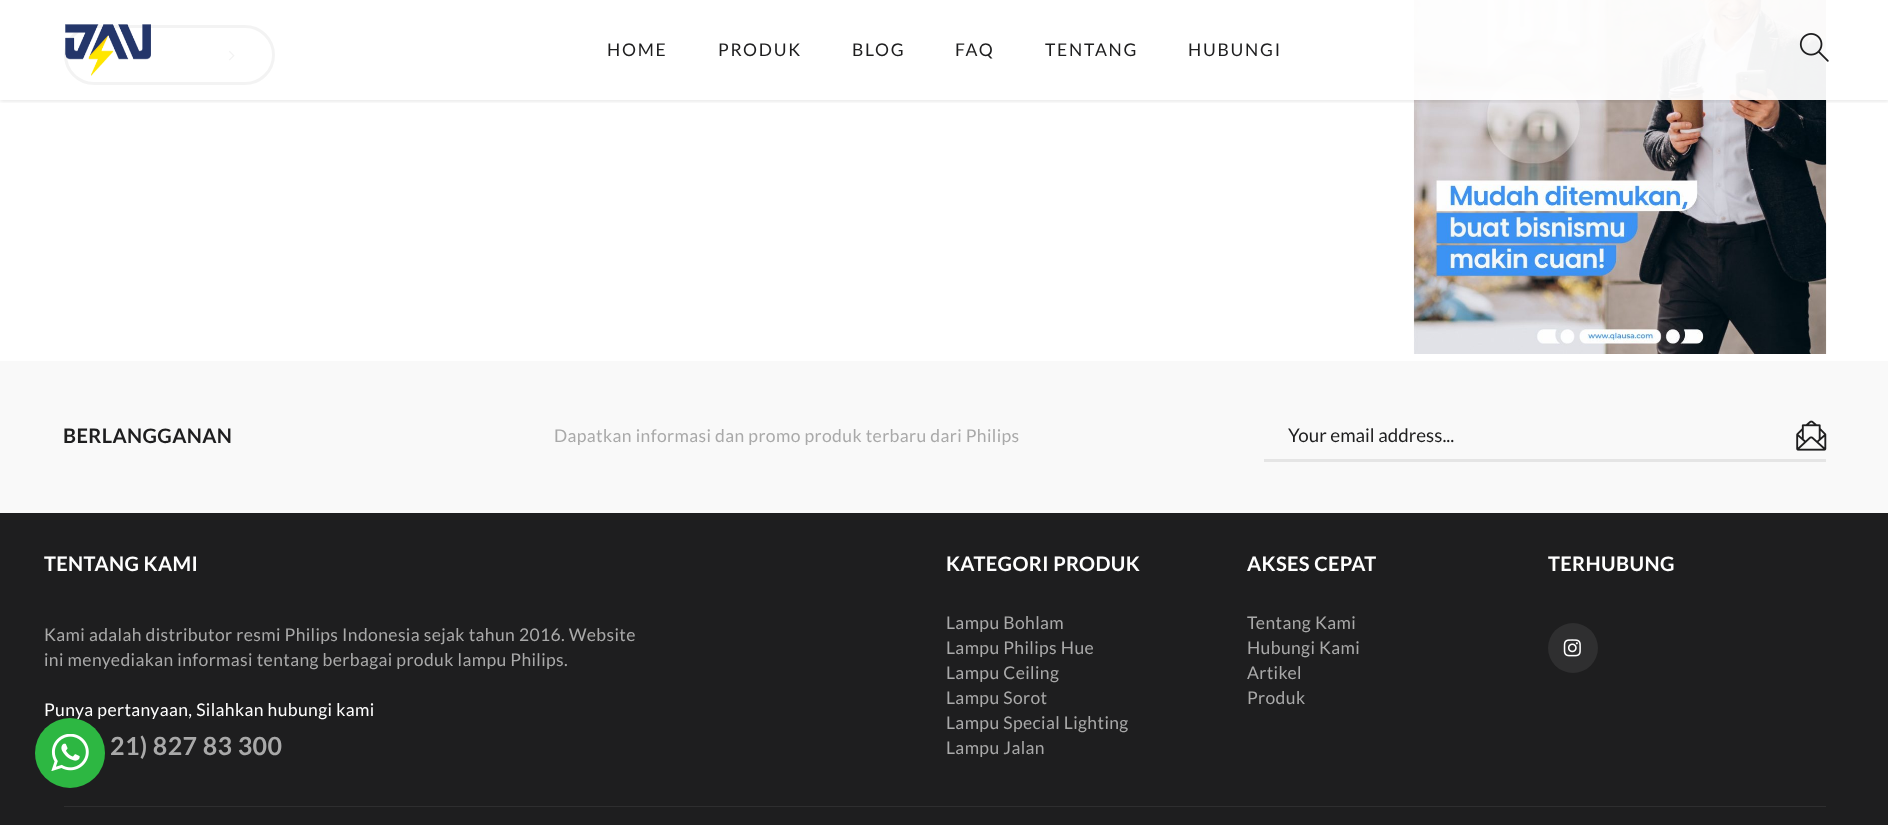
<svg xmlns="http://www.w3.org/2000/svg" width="1888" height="825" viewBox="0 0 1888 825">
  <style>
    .t1 { font: 17.5px Lato; letter-spacing: 1.75px; fill: #1e1e1f; }
    .t2 { font: bold 20px Lato; letter-spacing: 0.38px; fill: #1e1e1f; }
    .t3 { font: 17.5px Lato; letter-spacing: 0.38px; fill: #a9a9a9; }
    .t4 { font: 18.75px Lato; fill: #1e1e1f; }
    .t5 { font: bold 20px Lato; letter-spacing: 0.38px; fill: #fff; }
    .t6 { font: 17.5px Lato; letter-spacing: 0.38px; fill: #fff; }
    .t7 { font: bold 25px Lato; letter-spacing: 0.38px; fill: #a9a9a9; }
  </style>
  <defs>
    <clipPath id="clip1"><rect x="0" y="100" width="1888" height="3"/></clipPath>
  </defs>
  <rect width="100%" height="100%" fill="#fff"/>
  <rect x="65.5" y="26.5" width="208" height="57" rx="28.5" fill="none" stroke="#1e1e1f" stroke-width="3"/>
  <image x="228" y="50" width="7" height="11" href="images/1.png"/>
  <image x="1413" y="0" width="414" height="354" href="images/2.png"/>
  <g clip-path="url(#clip1)">
    <rect x="0" y="1" width="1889" height="100" fill="#0000001c" filter="blur(2px)"/>
  </g>
  <rect x="64" y="0" width="1763" height="100" fill="#fffffff2"/>
  <image x="65" y="24" width="86" height="52" href="images/3.png"/>
  <text x="607" y="56" class="t1">HOME</text>
  <text x="718" y="56" class="t1">PRODUK</text>
  <text x="852" y="56" class="t1">BLOG</text>
  <text x="955" y="56" class="t1">FAQ</text>
  <text x="1045" y="56" class="t1">TENTANG</text>
  <text x="1188" y="56" class="t1">HUBUNGI</text>
  <image x="1799" y="33" width="30" height="29" href="images/4.png"/>
  <rect x="0" y="513" width="1888" height="312" fill="#1e1e1f"/>
  <rect x="0" y="361" width="1888" height="152" fill="#f9f9f9"/>
  <text x="63" y="443" class="t2">BERLANGGANAN</text>
  <text x="554" y="442" class="t3">Dapatkan informasi dan promo produk terbaru dari Philips</text>
  <rect x="1264" y="459" width="562" height="3" fill="#e5e5e5"/>
  <text x="1288" y="442" class="t4">Your email address...</text>
  <image x="1796" y="420" width="31" height="31" href="images/5.png"/>
  <text x="44" y="571" class="t5">TENTANG KAMI</text>
  <text x="44" y="641" class="t3">Kami adalah distributor resmi Philips Indonesia sejak tahun 2016. Website</text>
  <text x="44" y="666" class="t3">ini menyediakan informasi tentang berbagai produk lampu Philips.</text>
  <text x="44" y="716" class="t6">Punya pertanyaan, Silahkan hubungi kami</text>
  <text x="110" y="755" class="t7">21) 827 83 300</text>
  <text x="946" y="571" class="t5">KATEGORI PRODUK</text>
  <text x="946" y="629" class="t3">Lampu Bohlam</text>
  <text x="946" y="654" class="t3">Lampu Philips Hue</text>
  <text x="946" y="679" class="t3">Lampu Ceiling</text>
  <text x="946" y="704" class="t3">Lampu Sorot</text>
  <text x="946" y="729" class="t3">Lampu Special Lighting</text>
  <text x="946" y="754" class="t3">Lampu Jalan</text>
  <text x="1247" y="571" class="t5">AKSES CEPAT</text>
  <text x="1247" y="629" class="t3">Tentang Kami</text>
  <text x="1247" y="654" class="t3">Hubungi Kami</text>
  <text x="1247" y="679" class="t3">Artikel</text>
  <text x="1247" y="704" class="t3">Produk</text>
  <text x="1548" y="571" class="t5">TERHUBUNG</text>
  <circle cx="1573" cy="648" r="25" fill="#2f2f30"/>
  <image x="1563" y="639" width="18" height="18" href="images/6.png"/>
  <rect x="64" y="806" width="1762" height="1" fill="#2e2e2f"/>
  <circle cx="70" cy="753" r="35" fill="#2db742"/>
  <image x="51" y="734" width="38" height="37" href="images/7.png"/>
</svg>
